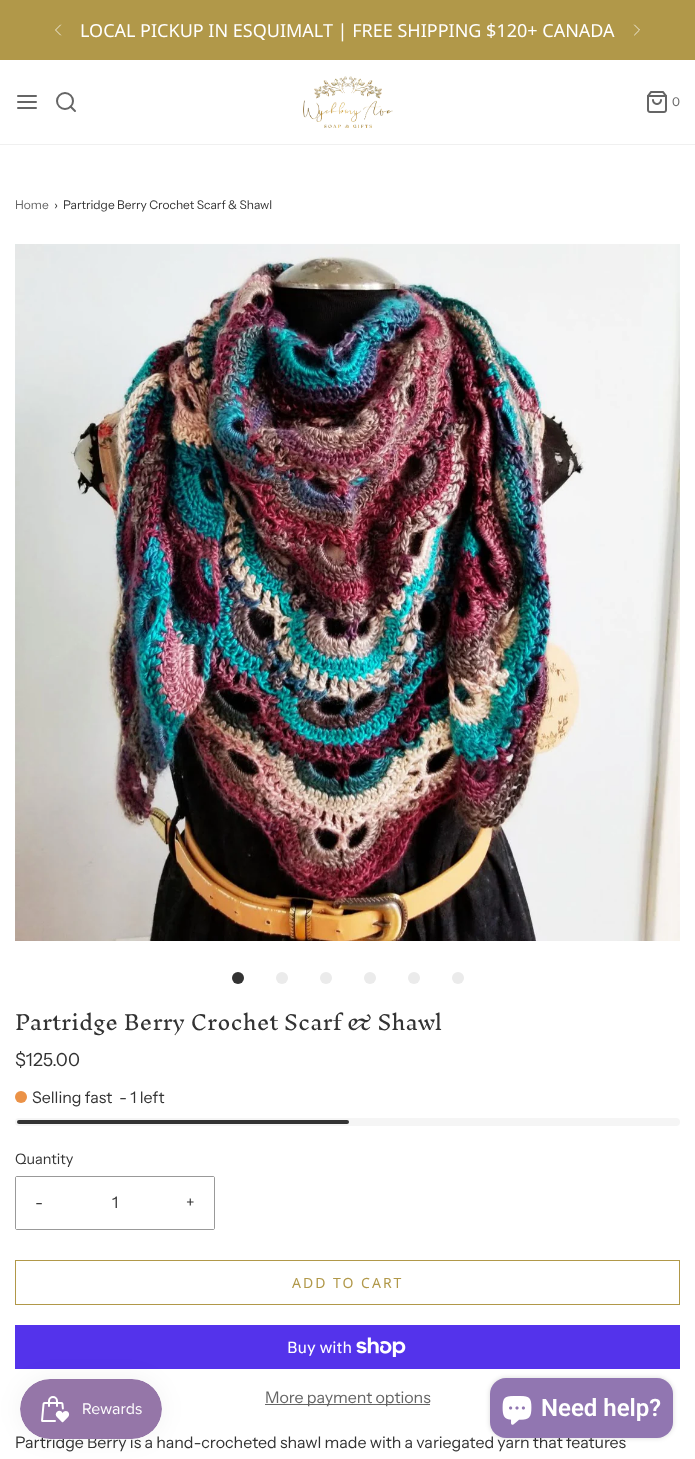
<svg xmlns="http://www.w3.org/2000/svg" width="695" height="1459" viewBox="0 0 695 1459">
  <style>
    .t1 { font: 18px Noto Sans; fill: #fff; }
    .t2 { font: 12px Instrument Sans; fill: #656565; }
    .t3 { font: 12px Instrument Sans; fill: #333; }
    .t4 { font: 300 20px Inknut Antiqua; fill: #333; }
    .t5 { font: 18px Instrument Sans; fill: #333; }
    .t6 { font: 16px Instrument Sans; fill: #333; }
    .t7 { font: 14.5px Instrument Sans; fill: #333; }
    .t8 { font: 14px Noto Sans; letter-spacing: 2px; fill: #b19849; }
    .t9 { font: 16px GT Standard; fill: #fff; }
    .t10 { font: 16px Instrument Sans; fill: #656565; }
    .t11 { font: 600 24px Roboto; fill: #fff; }
  </style>
  <rect width="100%" height="100%" fill="#fff"/>
  <rect x="0" y="0" width="695" height="60" fill="#b19849"/>
  <text x="80" y="37" class="t1">LOCAL PICKUP IN ESQUIMALT | FREE SHIPPING $120+ CANADA</text>
  <path d="M60.5 35L55.5 30L60.5 25" fill="none" stroke="#fff" stroke-width="0.8" stroke-linecap="round" stroke-linejoin="round"/>
  <path d="M634.5 35L639.5 30L634.5 25" fill="none" stroke="#fff" stroke-width="0.8" stroke-linecap="round" stroke-linejoin="round"/>
  <rect x="0" y="144" width="695" height="1" fill="#f0f0f0"/>
  <path d="M18 102H36M18 96H36M18 108H36" fill="none" stroke="#656565" stroke-width="2" stroke-linecap="round" stroke-linejoin="round"/>
  <circle cx="65" cy="101" r="8" fill="none" stroke="#656565" stroke-width="2"/>
  <path d="M75 111L70.5 106.5" fill="none" stroke="#656565" stroke-width="2" stroke-linecap="round" stroke-linejoin="round"/>
  <image x="303" y="76" width="90" height="52" href="images/1.png"/>
  <image x="647" y="91" width="20" height="22" href="images/2.png"/>
  <text x="672" y="106" class="t2">0</text>
  <text x="15" y="209" class="t2">Home</text>
  <text x="54" y="209" class="t3">›</text>
  <text x="63" y="209" class="t3">Partridge Berry Crochet Scarf &amp; Shawl</text>
  <image x="15" y="244" width="665" height="697" href="images/3.png"/>
  <circle cx="238" cy="978" r="6" fill="#333"/>
  <circle cx="282" cy="978" r="6" fill="#ebebeb"/>
  <circle cx="326" cy="978" r="6" fill="#ebebeb"/>
  <circle cx="370" cy="978" r="6" fill="#ebebeb"/>
  <circle cx="414" cy="978" r="6" fill="#ebebeb"/>
  <circle cx="458" cy="978" r="6" fill="#ebebeb"/>
  <text x="15" y="1030" class="t4">Partridge Berry Crochet Scarf &amp; Shawl</text>
  <text x="15" y="1066" class="t5">$125.00</text>
  <circle cx="21" cy="1097" r="6" fill="#eb9247"/>
  <text x="32" y="1103" class="t6">Selling fast</text>
  <text x="119" y="1103" class="t6">- 1 left</text>
  <rect x="15" y="1118" width="665" height="8" rx="4" fill="#f5f5f5"/>
  <rect x="17" y="1120" width="332" height="4" rx="2" fill="#333"/>
  <text x="15" y="1164" class="t7">Quantity</text>
  <rect x="15.5" y="1176.5" width="199" height="53" rx="1.5" fill="none" stroke="#999"/>
  <rect x="16" y="1177" width="1" height="52" fill="#fff"/>
  <text x="35" y="1208" class="t6">-</text>
  <text x="112" y="1208" class="t6">1</text>
  <rect x="213" y="1177" width="1" height="52" fill="#fff"/>
  <text x="186" y="1208" class="t6">+</text>
  <rect x="15.5" y="1260.5" width="664" height="44" fill="none" stroke="#b19849"/>
  <text x="292" y="1288" class="t8">ADD TO CART</text>
  <rect x="15" y="1325" width="665" height="44" fill="#5433eb"/>
  <text x="287" y="1353" class="t9">Buy with</text>
  <image x="356" y="1337" width="50" height="20" href="images/4.png"/>
  <rect x="265" y="1404" width="165" height="1" fill="#656565"/>
  <text x="265" y="1403" class="t10">More payment options</text>
  <text x="15" y="1448" class="t6">Partridge Berry is a hand-crocheted shawl made with a variegated yarn that features</text>
  <rect x="20" y="1379" width="142" height="60" rx="30" fill="#0000000d" filter="blur(12.5px)"/>
  <image x="20" y="1379" width="142" height="60" href="images/5.png"/>
  <rect x="490" y="1378" width="183" height="60" rx="16" fill="#00000026" filter="blur(2.5px)"/>
  <rect x="490" y="1378" width="183" height="60" rx="16" fill="#9176b1"/>
  <image x="502" y="1396" width="30" height="29" href="images/6.png"/>
  <text x="541" y="1416" class="t11">Need help?</text>
</svg>
